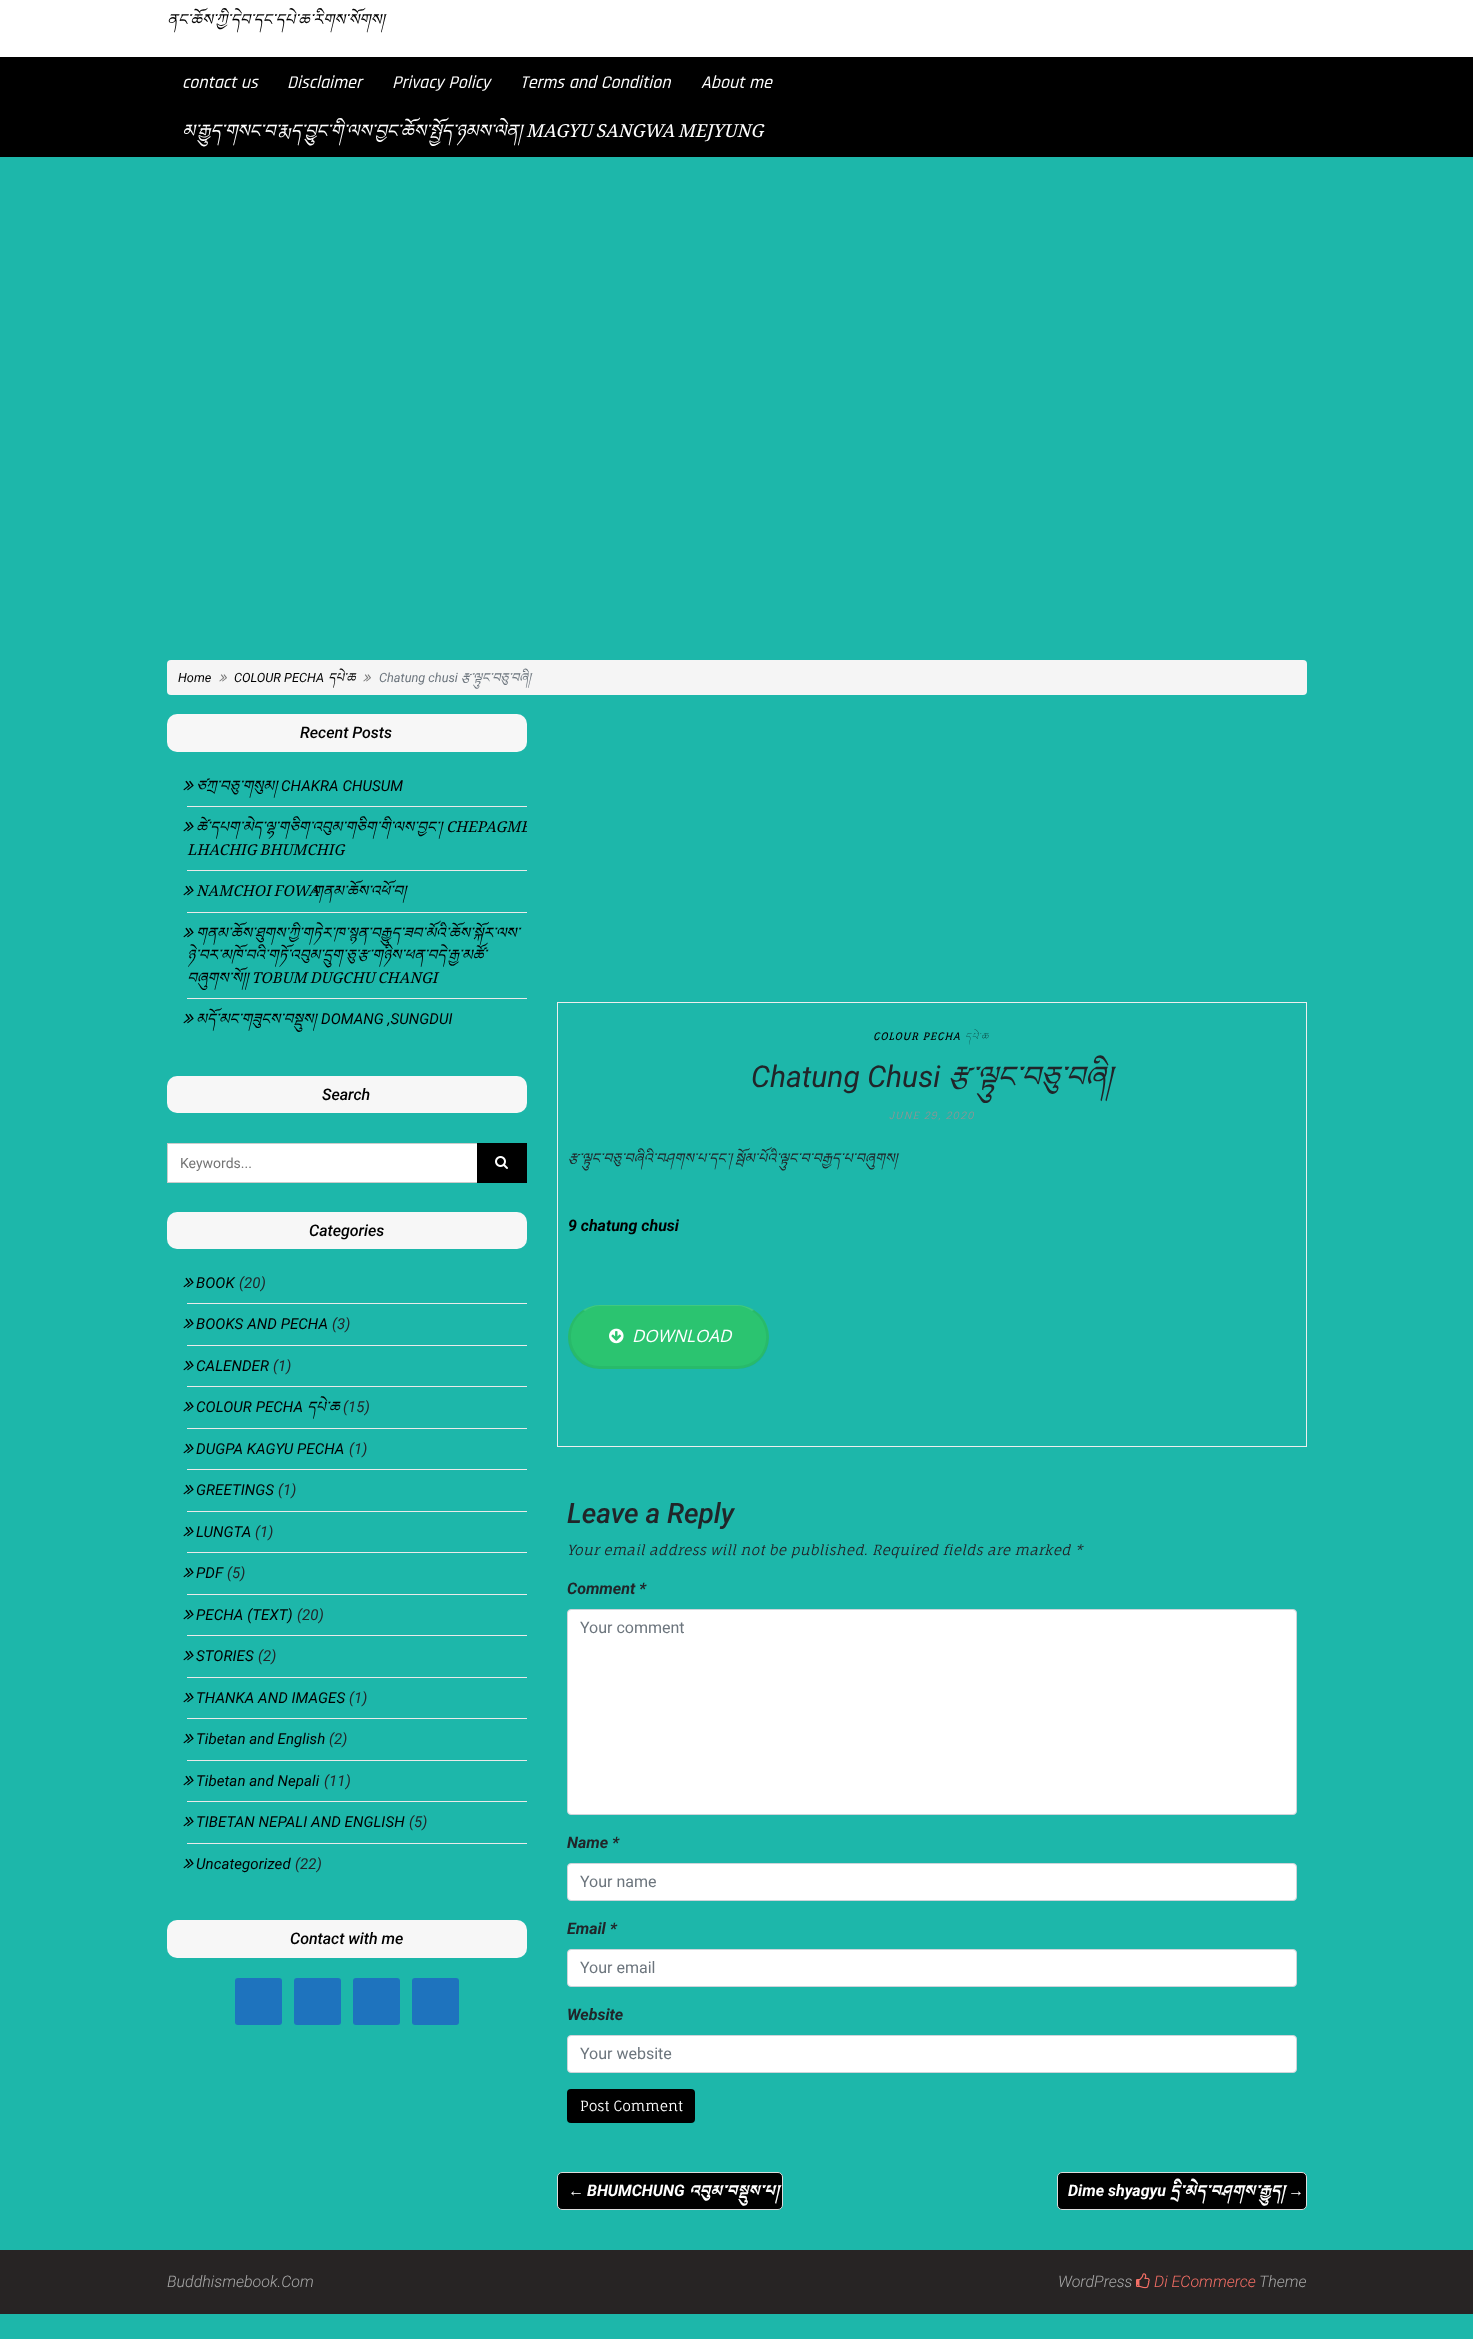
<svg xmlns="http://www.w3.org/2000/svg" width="1473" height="2339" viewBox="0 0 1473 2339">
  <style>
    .t1 { font: italic 16px Noto Serif Tibetan; fill: #000; }
    .t2 { font: italic 500 18px Rajdhani; fill: #fff; }
    .t3 { font: italic 18px Noto Serif Tibetan; fill: #fff; }
    .t4 { font: italic 12.75px Roboto; fill: #000; }
    .t5 { font: italic 12.75px Noto Serif Tibetan; fill: #000; }
    .t6 { font: italic 12.75px Roboto; fill: #6c757d; }
    .t7 { font: italic 12.75px Noto Serif Tibetan; fill: #6c757d; }
    .t8 { font: italic 500 16px Roboto; fill: #000; }
    .t9 { font: italic 15px Noto Serif Tibetan; letter-spacing: 0.1px; fill: #000; }
    .t10 { font: italic 15px Roboto; letter-spacing: 0.1px; fill: #000; }
    .t11 { font: 14px Roboto; fill: #757575; }
    .t12 { font: italic 15px Roboto; letter-spacing: 0.1px; fill: #212529; }
    .t13 { font: italic bold 10px Fauna One; letter-spacing: 1px; fill: #000; }
    .t14 { font: italic 100 10px Noto Serif Tibetan; letter-spacing: 1px; fill: #000; }
    .t15 { font: italic 30px Roboto; fill: #212529; }
    .t16 { font: italic 30px Noto Serif Tibetan; fill: #212529; }
    .t17 { font: italic 10px Fauna One; letter-spacing: 1px; fill: #939393; }
    .t18 { font: italic 14px Noto Serif Tibetan; letter-spacing: 0.2px; fill: #212529; }
    .t19 { font: italic bold 16px Roboto; fill: #000; }
    .t20 { font: italic 17px Open Sans; fill: #fff; }
    .t21 { font: italic 500 28px Roboto; fill: #212529; }
    .t22 { font: italic 14px Fauna One; letter-spacing: 0.2px; fill: #212529; }
    .t23 { font: italic bold 16px Roboto; fill: #212529; }
    .t24 { font: 16px Roboto; fill: #6c757d; }
    .t25 { font: 14px Fauna One; fill: #fff; }
    .t26 { font: italic bold 16px Liberation Sans; fill: #fff; }
    .t27 { font: italic bold 16px Roboto; fill: #fff; }
    .t28 { font: italic bold 16px Noto Serif Tibetan; fill: #fff; }
    .t29 { font: italic 300 16px Roboto; fill: #a7a7a7; }
    .t30 { font: italic 300 16px Roboto; fill: #f66f66; }
  </style>
  <defs>
    <clipPath id="clip1"><rect x="167" y="714" width="360" height="343"/></clipPath>
  </defs>
  <rect width="100%" height="100%" fill="#1db7aa"/>
  <rect x="0" y="0" width="1473" height="57" fill="#fff"/>
  <text x="167" y="25" class="t1">ནང་ཆོས་ཀྱི་དེབ་དང་དཔེ་ཆ་རིགས་སོགས།</text>
  <rect x="0" y="57" width="1473" height="100" fill="#000"/>
  <text x="182" y="88" class="t2">contact us</text>
  <text x="287" y="88" class="t2">Disclaimer</text>
  <text x="392" y="88" class="t2">Privacy Policy</text>
  <text x="520" y="88" class="t2">Terms and Condition</text>
  <text x="701" y="88" class="t2">About me</text>
  <text x="182" y="137" class="t3">མ་རྒྱུད་གསང་བ་རྨད་བྱུང་གི་ལས་བྱང་ཆོས་སྤྱོད་ཉམས་ལེན།</text>
  <text x="526" y="137" word-spacing="-1" class="t3">MAGYU SANGWA MEJYUNG</text>
  <rect x="167" y="660" width="1140" height="35" rx="4" fill="#f5f5f5"/>
  <text x="178" y="682" class="t4">Home</text>
  <image x="219" y="674" width="8" height="8" href="images/1.png"/>
  <text x="234" y="682" class="t4">COLOUR PECHA</text>
  <text x="328" y="682" class="t5">དཔེ་ཆ</text>
  <image x="363" y="674" width="8" height="8" href="images/1.png"/>
  <text x="379" y="682" class="t6">Chatung chusi</text>
  <text x="461" y="682" class="t7">རྩ་ལྟུང་བཅུ་བཞི།</text>
  <rect x="167" y="714" width="360" height="38" rx="10" fill="#f7f7f7"/>
  <text x="300" y="738" class="t8">Recent Posts</text>
  <rect x="187" y="806" width="340" height="1" fill="#eaeaea"/>
  <image x="183" y="780" width="11" height="11" href="images/2.png"/>
  <text x="196" y="791" class="t9">ཙཀྲ་བཅུ་གསུམ།</text>
  <text x="281" y="791" class="t10">CHAKRA CHUSUM</text>
  <rect x="187" y="870" width="340" height="1" fill="#eaeaea"/>
  <text x="196" y="832" class="t9">ཚེ་དཔག་མེད་ལྷ་གཅིག་འབུམ་གཅིག་གི་ལས་བྱང༌།</text>
  <image x="183" y="821" width="11" height="11" href="images/2.png"/>
  <g clip-path="url(#clip1)">
    <text x="446" y="832" class="t9">CHEPAGME</text>
  </g>
  <text x="187" y="855" word-spacing="-1" class="t9">LHACHIG BHUMCHIG</text>
  <rect x="187" y="912" width="340" height="1" fill="#eaeaea"/>
  <image x="183" y="885" width="11" height="11" href="images/2.png"/>
  <text x="196" y="896" word-spacing="-1" class="t9">NAMCHOI FOWA</text>
  <text x="312" y="896" class="t9">གནམ་ཆོས་འཕོ་བ།</text>
  <rect x="187" y="998" width="340" height="1" fill="#eaeaea"/>
  <image x="183" y="927" width="11" height="11" href="images/2.png"/>
  <text x="196" y="938" class="t9">གནམ་ཆོས་ཐུགས་ཀྱི་གཏེར་ཁ་སྙན་བརྒྱུད་ཟབ་མོའི་ཆོས་སྐོར་ལས་</text>
  <text x="187" y="960" class="t9">ཉེ་བར་མཁོ་བའི་གཏོ་འབུམ་དྲུག་ཅུ་རྩ་གཉིས་ཕན་བདེ་རྒྱ་མཚོ་</text>
  <text x="187" y="983" word-spacing="-1" class="t9">བཞུགས་སོ།། TOBUM DUGCHU CHANGI</text>
  <image x="183" y="1013" width="11" height="11" href="images/2.png"/>
  <text x="196" y="1024" class="t9">མདོ་མང་གཟུངས་བསྡུས།</text>
  <text x="321" y="1024" class="t10">DOMANG ,SUNGDUI</text>
  <rect x="167" y="1076" width="360" height="37" rx="10" fill="#f7f7f7"/>
  <text x="322" y="1100" class="t8">Search</text>
  <rect x="168" y="1144" width="309" height="38" fill="#fff"/>
  <rect x="167.5" y="1143.5" width="359" height="39" fill="none" stroke="#ccc"/>
  <text x="180" y="1168" class="t11">Keywords...</text>
  <rect x="477" y="1143" width="50" height="40" fill="#000"/>
  <image x="495" y="1156" width="13" height="13" href="images/3.png"/>
  <rect x="167" y="1212" width="360" height="37" rx="10" fill="#f7f7f7"/>
  <text x="309" y="1236" class="t8">Categories</text>
  <rect x="187" y="1303" width="340" height="1" fill="#eaeaea"/>
  <image x="183" y="1277" width="11" height="11" href="images/2.png"/>
  <text x="196" y="1288" class="t10">BOOK</text>
  <text x="239" y="1288" class="t12">(20)</text>
  <rect x="187" y="1345" width="340" height="1" fill="#eaeaea"/>
  <image x="183" y="1318" width="11" height="11" href="images/2.png"/>
  <text x="196" y="1329" class="t10">BOOKS AND PECHA</text>
  <text x="332" y="1329" class="t12">(3)</text>
  <rect x="187" y="1386" width="340" height="1" fill="#eaeaea"/>
  <image x="183" y="1360" width="11" height="11" href="images/2.png"/>
  <text x="196" y="1371" class="t10">CALENDER</text>
  <text x="273" y="1371" class="t12">(1)</text>
  <rect x="187" y="1428" width="340" height="1" fill="#eaeaea"/>
  <image x="183" y="1401" width="11" height="11" href="images/2.png"/>
  <text x="196" y="1412" class="t10">COLOUR PECHA</text>
  <text x="307" y="1412" class="t9">དཔེ་ཆ</text>
  <text x="343" y="1412" class="t12">(15)</text>
  <rect x="187" y="1469" width="340" height="1" fill="#eaeaea"/>
  <image x="183" y="1443" width="11" height="11" href="images/2.png"/>
  <text x="196" y="1454" class="t10">DUGPA KAGYU PECHA</text>
  <text x="349" y="1454" class="t12">(1)</text>
  <rect x="187" y="1511" width="340" height="1" fill="#eaeaea"/>
  <image x="183" y="1484" width="11" height="11" href="images/2.png"/>
  <text x="196" y="1495" class="t10">GREETINGS</text>
  <text x="278" y="1495" class="t12">(1)</text>
  <rect x="187" y="1552" width="340" height="1" fill="#eaeaea"/>
  <image x="183" y="1526" width="11" height="11" href="images/2.png"/>
  <text x="196" y="1537" class="t10">LUNGTA</text>
  <text x="255" y="1537" class="t12">(1)</text>
  <rect x="187" y="1594" width="340" height="1" fill="#eaeaea"/>
  <image x="183" y="1567" width="11" height="11" href="images/2.png"/>
  <text x="196" y="1578" class="t10">PDF</text>
  <text x="227" y="1578" class="t12">(5)</text>
  <rect x="187" y="1635" width="340" height="1" fill="#eaeaea"/>
  <image x="183" y="1609" width="11" height="11" href="images/2.png"/>
  <text x="196" y="1620" class="t10">PECHA (TEXT)</text>
  <text x="297" y="1620" class="t12">(20)</text>
  <rect x="187" y="1677" width="340" height="1" fill="#eaeaea"/>
  <image x="183" y="1650" width="11" height="11" href="images/2.png"/>
  <text x="196" y="1661" class="t10">STORIES</text>
  <text x="258" y="1661" class="t12">(2)</text>
  <rect x="187" y="1718" width="340" height="1" fill="#eaeaea"/>
  <image x="183" y="1692" width="11" height="11" href="images/2.png"/>
  <text x="196" y="1703" class="t10">THANKA AND IMAGES</text>
  <text x="349" y="1703" class="t12">(1)</text>
  <rect x="187" y="1760" width="340" height="1" fill="#eaeaea"/>
  <image x="183" y="1733" width="11" height="11" href="images/2.png"/>
  <text x="196" y="1744" class="t10">Tibetan and English</text>
  <text x="329" y="1744" class="t12">(2)</text>
  <rect x="187" y="1801" width="340" height="1" fill="#eaeaea"/>
  <image x="183" y="1775" width="11" height="11" href="images/2.png"/>
  <text x="196" y="1786" class="t10">Tibetan and Nepali</text>
  <text x="324" y="1786" class="t12">(11)</text>
  <rect x="187" y="1843" width="340" height="1" fill="#eaeaea"/>
  <image x="183" y="1816" width="11" height="11" href="images/2.png"/>
  <text x="196" y="1827" class="t10">TIBETAN NEPALI AND ENGLISH</text>
  <text x="409" y="1827" class="t12">(5)</text>
  <image x="183" y="1858" width="11" height="11" href="images/2.png"/>
  <text x="196" y="1869" class="t10">Uncategorized</text>
  <text x="295" y="1869" class="t12">(22)</text>
  <rect x="167" y="1920" width="360" height="38" rx="10" fill="#f7f7f7"/>
  <text x="290" y="1944" class="t8">Contact with me</text>
  <rect x="235" y="1978" width="47" height="47" rx="3" fill="#1e73be"/>
  <rect x="294" y="1978" width="47" height="47" rx="3" fill="#1e73be"/>
  <rect x="353" y="1978" width="47" height="47" rx="3" fill="#1e73be"/>
  <rect x="412" y="1978" width="47" height="47" rx="3" fill="#1e73be"/>
  <rect x="557.5" y="1002.5" width="749" height="444" fill="none" stroke="#eee"/>
  <text x="873" y="1040" class="t13">COLOUR PECHA</text>
  <text x="965" y="1040" class="t14">དཔེ་ཆ</text>
  <text x="751" y="1087" class="t15">Chatung Chusi</text>
  <text x="948" y="1087" class="t16">རྩ་ལྟུང་བཅུ་བཞི།</text>
  <text x="889" y="1119" class="t17">JUNE 29, 2020</text>
  <text x="568" y="1163" word-spacing="-1" class="t18">རྩ་ལྟུང་བཅུ་བཞིའི་བཤགས་པ་དང་། སྦོམ་པོའི་ལྟུང་བ་བརྒྱད་པ་བཞུགས།</text>
  <text x="568" y="1231" class="t19">9 chatung chusi</text>
  <rect x="568" y="1305" width="201" height="64" rx="32" fill="#2bc470"/>
  <path d="M600 1305C594 1305 588 1307 583 1310L585 1311C589 1308 594 1306 600 1306H737C743 1306 748 1308 752 1311L754 1310C749 1307 743 1305 737 1305Z" fill="#ffffff1a"/>
  <path d="M754 1310C771 1321 774 1346 760 1360L758 1358C771 1344 768 1321 752 1311Z" fill="#0000000d"/>
  <path d="M600 1369H737C746 1369 754 1366 760 1360L758 1358C752 1363 745 1366 737 1366H600C592 1366 585 1363 580 1358L577 1360C583 1366 591 1369 600 1369Z" fill="#0000000d"/>
  <path d="M577 1360C563 1346 566 1321 583 1310L585 1311C569 1321 566 1344 580 1358Z" fill="#0000000d"/>
  <image x="609" y="1328" width="15" height="16" href="images/4.png"/>
  <text x="632" y="1342" class="t20">DOWNLOAD</text>
  <text x="567" y="1523" class="t21">Leave a Reply</text>
  <text x="567" y="1555" class="t22">Your email address will not be published. Required fields are marked *</text>
  <text x="567" y="1594" class="t23">Comment *</text>
  <rect x="567.5" y="1609.5" width="729" height="205" rx="3.5" fill="#fff" stroke="#ced4da"/>
  <text x="580" y="1633" class="t24">Your comment</text>
  <text x="567" y="1848" class="t23">Name *</text>
  <rect x="567.5" y="1863.5" width="729" height="37" rx="3.5" fill="#fff" stroke="#ced4da"/>
  <text x="580" y="1887" class="t24">Your name</text>
  <text x="567" y="1934" class="t23">Email *</text>
  <rect x="567.5" y="1949.5" width="729" height="37" rx="3.5" fill="#fff" stroke="#ced4da"/>
  <text x="580" y="1973" class="t24">Your email</text>
  <text x="567" y="2020" class="t23">Website</text>
  <rect x="567.5" y="2035.5" width="729" height="37" rx="3.5" fill="#fff" stroke="#ced4da"/>
  <text x="580" y="2059" class="t24">Your website</text>
  <rect x="567" y="2089" width="128" height="34" rx="4" fill="#000"/>
  <text x="580" y="2111" class="t25">Post Comment</text>
  <rect x="557.5" y="2172.5" width="225" height="37" rx="4.5" fill="#000" stroke="#ddd"/>
  <text x="568" y="2196" class="t26">←</text>
  <text x="587" y="2196" class="t27">BHUMCHUNG</text>
  <text x="689" y="2196" class="t28">འབུམ་བསྡུས་པ།</text>
  <rect x="1057.5" y="2172.5" width="249" height="37" rx="4.5" fill="#000" stroke="#ddd"/>
  <text x="1068" y="2196" class="t27">Dime shyagyu</text>
  <text x="1170" y="2196" class="t28">དྲི་མེད་བཤགས་རྒྱུད།</text>
  <text x="1288" y="2196" class="t26">→</text>
  <rect x="0" y="2250" width="1473" height="64" fill="#272424"/>
  <text x="167" y="2287" class="t29">Buddhismebook.Com</text>
  <text x="1058" y="2287" class="t29">WordPress</text>
  <image x="1136" y="2273" width="14" height="16" href="images/5.png"/>
  <text x="1154" y="2287" class="t30">Di ECommerce</text>
  <text x="1259" y="2287" class="t29">Theme</text>
</svg>
